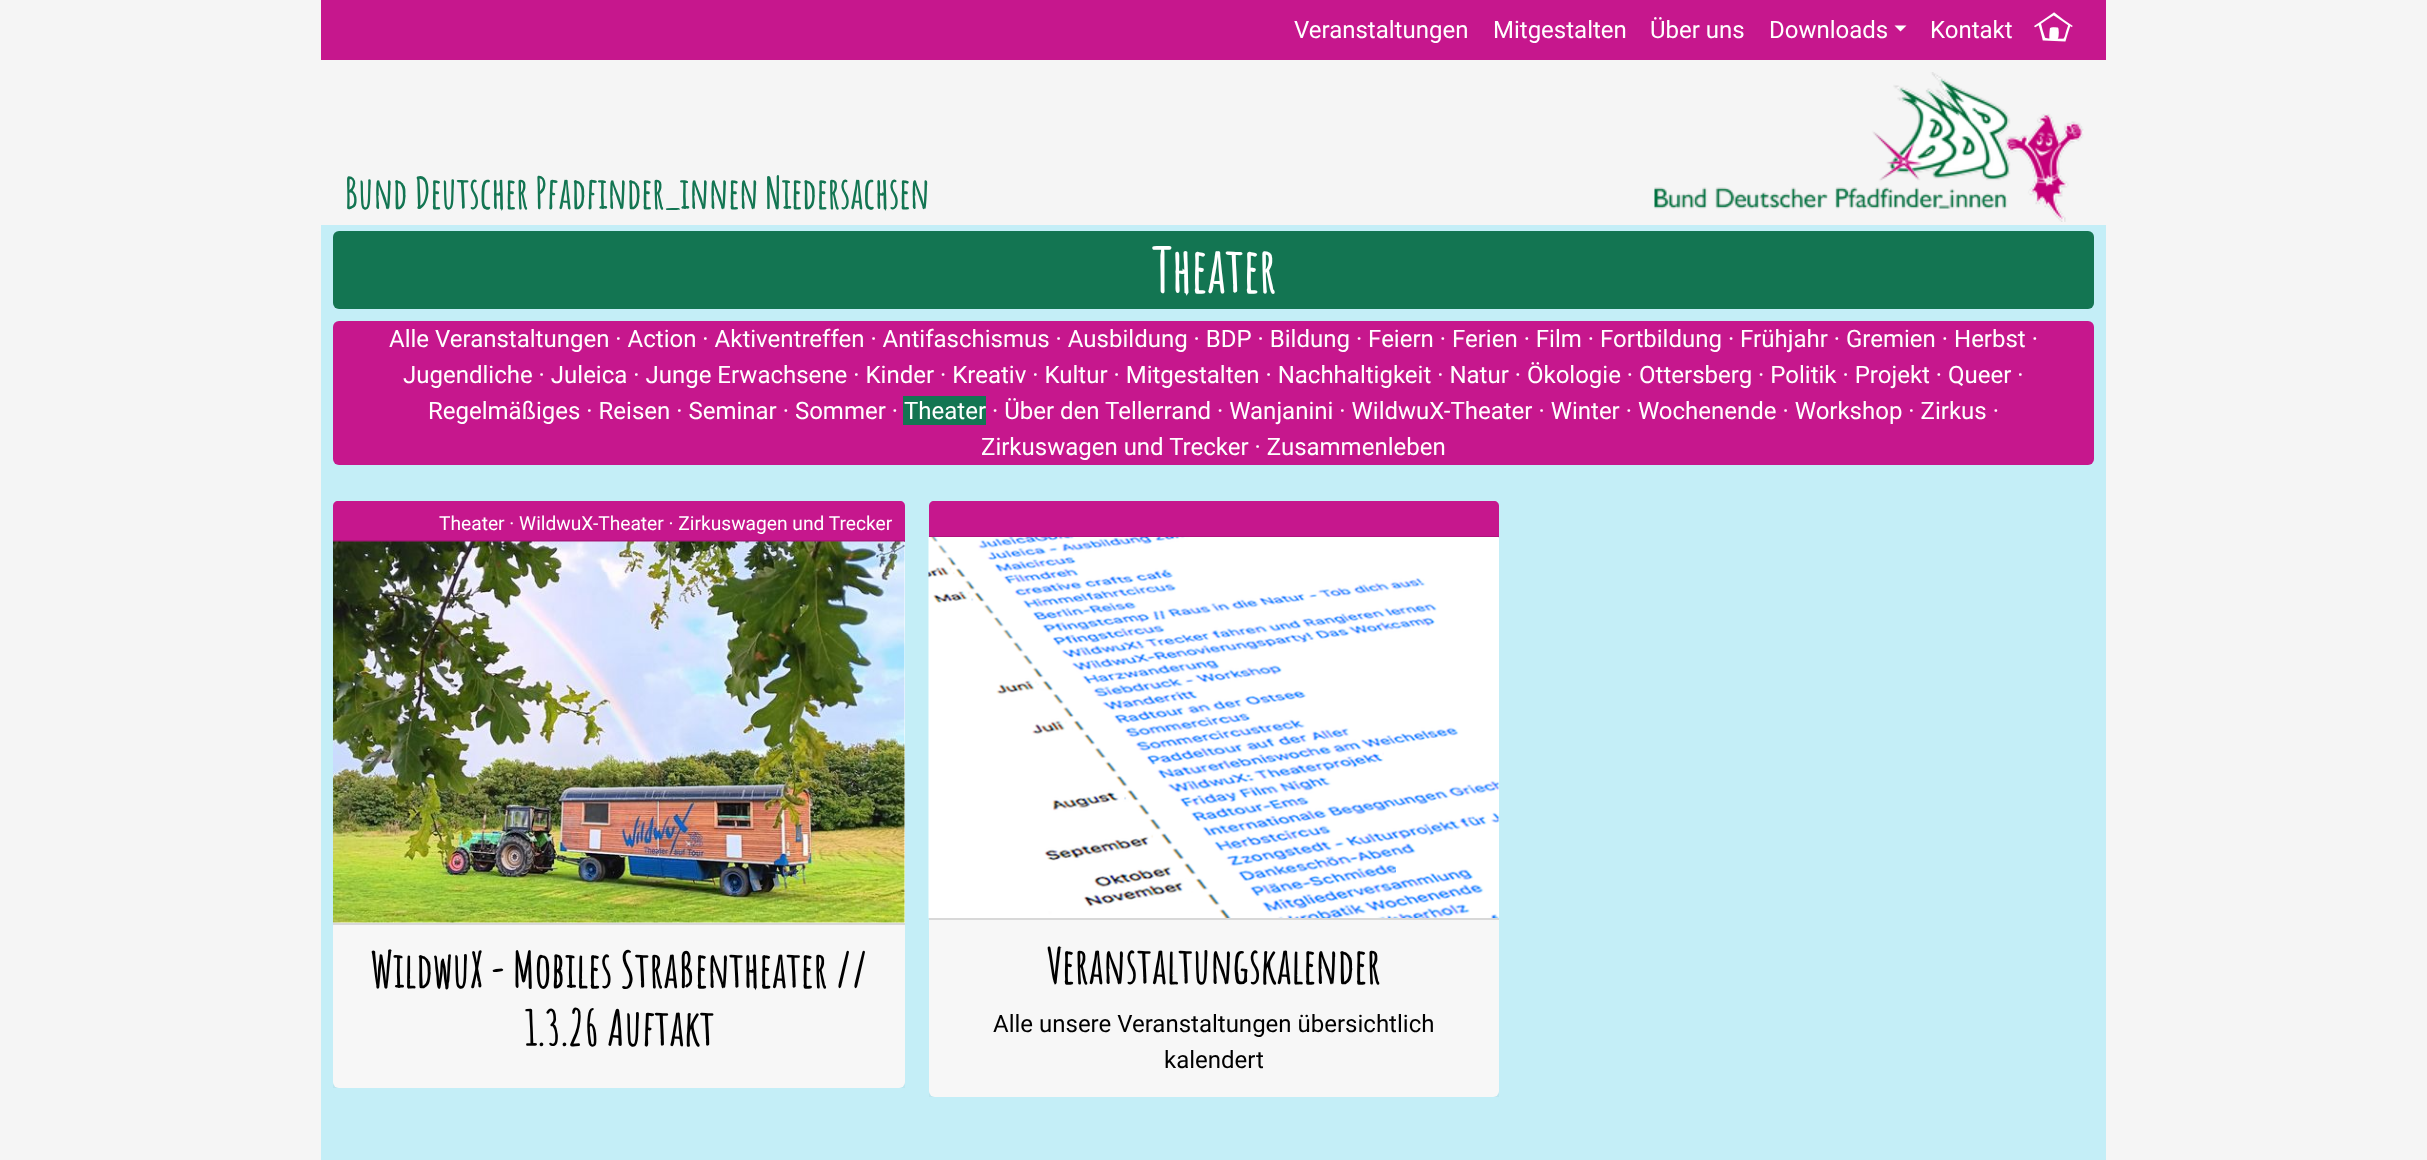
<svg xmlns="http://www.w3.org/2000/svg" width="2427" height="1160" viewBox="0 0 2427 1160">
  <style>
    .t1 { font: 24px Roboto; fill: #fff; }
    .t2 { font: bold 42px Amatic SC; fill: #137552; }
    .t3 { font: bold 60px Amatic SC; fill: #fff; }
    .t4 { font: 19.2px Roboto; fill: #fff; }
    .t5 { font: bold 48px Amatic SC; fill: #000; }
    .t6 { font: 24px Roboto; fill: #000; }
  </style>
  <rect width="100%" height="100%" fill="#f5f5f5"/>
  <rect x="321" y="0" width="1785" height="60" fill="#c6178d"/>
  <text x="1294" y="38" class="t1">Veranstaltungen</text>
  <text x="1493" y="38" class="t1">Mitgestalten</text>
  <text x="1650" y="38" class="t1">Über uns</text>
  <text x="1769" y="38" class="t1">Downloads</text>
  <path d="M1894.5 25.5H1906.5L1900.5 31.5Z" fill="#fff"/>
  <text x="1930" y="38" class="t1">Kontakt</text>
  <image x="2034" y="12" width="39" height="30" href="images/1.png"/>
  <text x="344" y="209" class="t2">Bund Deutscher Pfadfinder_innen Niedersachsen</text>
  <image x="1654" y="72" width="430" height="150" href="images/2.png"/>
  <rect x="321" y="225" width="1785" height="935" fill="#c4eef7"/>
  <rect x="333" y="231" width="1761" height="78" rx="6" fill="#137552"/>
  <text x="1152" y="293" class="t3">Theater</text>
  <rect x="333" y="321" width="1761" height="144" rx="6" fill="#c6178d"/>
  <text x="389" y="347" class="t1">Alle Veranstaltungen · Action · Aktiventreffen · Antifaschismus · Ausbildung · BDP · Bildung · Feiern · Ferien · Film · Fortbildung · Frühjahr · Gremien · Herbst ·</text>
  <text x="403" y="383" class="t1">Jugendliche · Juleica · Junge Erwachsene · Kinder · Kreativ · Kultur · Mitgestalten · Nachhaltigkeit · Natur · Ökologie · Ottersberg · Politik · Projekt · Queer ·</text>
  <text x="428" y="419" class="t1">Regelmäßiges · Reisen · Seminar · Sommer ·</text>
  <rect x="903" y="396" width="83" height="29" fill="#137552"/>
  <text x="904" y="419" class="t1">Theater · Über den Tellerrand · Wanjanini · WildwuX-Theater · Winter · Wochenende · Workshop · Zirkus ·</text>
  <text x="981" y="455" class="t1">Zirkuswagen und Trecker · Zusammenleben</text>
  <rect x="333" y="501" width="572" height="587" rx="6" fill="#fff"/>
  <path d="M338 501H900C903 501 905 503 905 506V542H333V506C333 503 335 501 338 501Z" fill="#c6178d"/>
  <rect x="333" y="540" width="572" height="2" fill="#ad147b"/>
  <text x="439" y="530" class="t4">Theater · WildwuX-Theater · Zirkuswagen und Trecker</text>
  <image x="333" y="541" width="572" height="382" href="images/3.png"/>
  <rect x="333" y="925" width="572" height="163" fill="#00000008"/>
  <rect x="333" y="923" width="572" height="2" fill="#d8d8d8"/>
  <text x="370" y="988" class="t5">WildwuX - Mobiles Straßentheater //</text>
  <text x="524" y="1046" class="t5">1.3.26 Auftakt</text>
  <rect x="929" y="501" width="570" height="596" rx="6" fill="#fff"/>
  <rect x="1498" y="537" width="1" height="1" fill="#e0e0e0"/>
  <path d="M934 501H1494C1497 501 1499 503 1499 506V537H929V506C929 503 931 501 934 501Z" fill="#c6178d"/>
  <rect x="929" y="536" width="570" height="1" fill="#ae147c"/>
  <image x="928" y="537" width="571" height="381" href="images/4.png"/>
  <rect x="929" y="920" width="570" height="177" fill="#00000008"/>
  <rect x="929" y="918" width="570" height="2" fill="#d8d8d8"/>
  <text x="1046" y="984" class="t5">Veranstaltungskalender</text>
  <text x="993" y="1032" class="t6">Alle unsere Veranstaltungen übersichtlich</text>
  <text x="1164" y="1068" class="t6">kalendert</text>
</svg>
